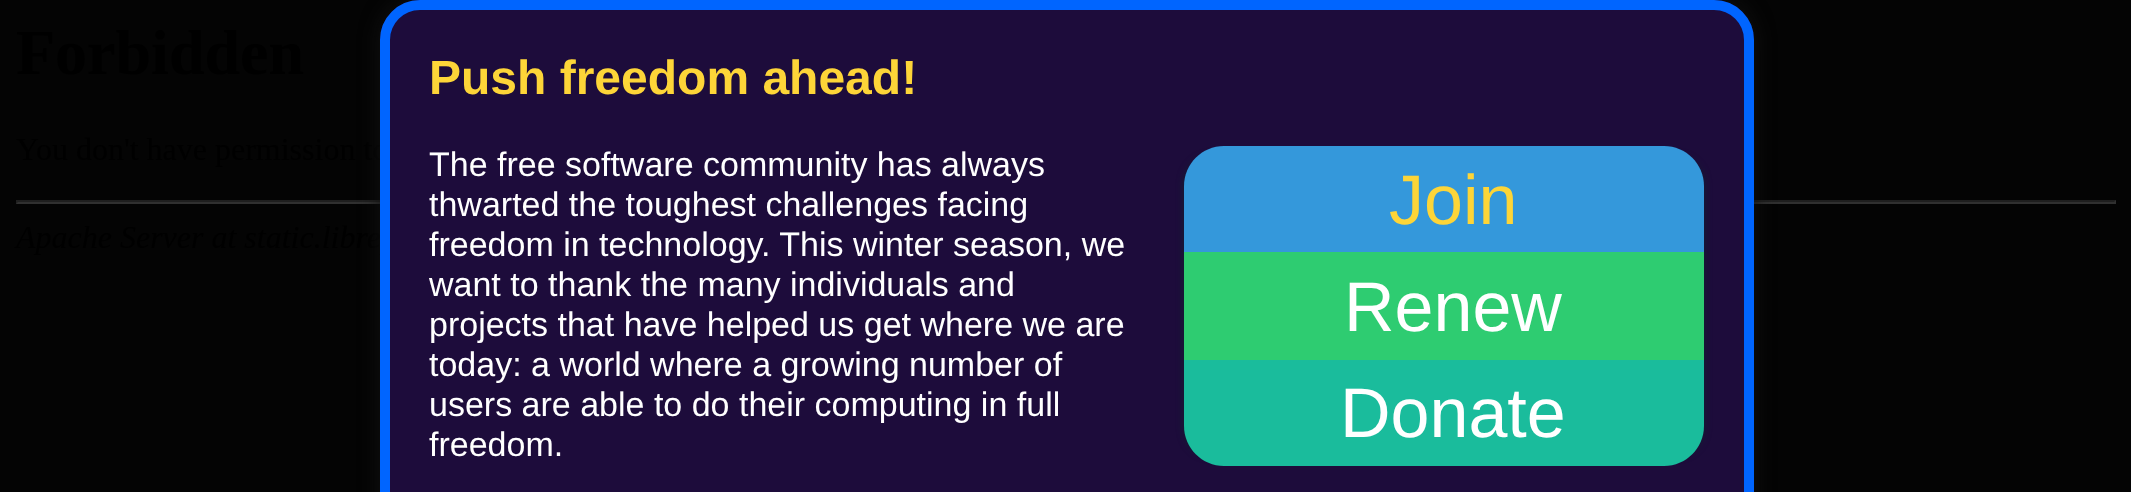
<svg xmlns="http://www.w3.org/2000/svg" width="2131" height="492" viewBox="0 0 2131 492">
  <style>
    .t1 { font: bold 48px Liberation Sans; fill: #fdd538; }
    .t2 { font: 34px Liberation Sans; fill: #fff; }
    .t3 { font: 70px Liberation Sans; fill: #fdd538; }
    .t4 { font: 70px Liberation Sans; fill: #fff; }
  </style>
  <rect width="100%" height="100%" fill="#040404"/>
  <image x="14" y="30" width="2102" height="225" href="images/1.png"/>
  <rect x="380" y="0" width="1374" height="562" rx="40" fill="#111" filter="blur(10px)"/>
  <path d="M420 0H1714C1736 0 1754 18 1754 40V492H380V40C380 18 398 0 420 0Z" fill="#1d0c3b"/>
  <rect x="385" y="5" width="1364" height="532" rx="35" fill="none" stroke="#0065ff" stroke-width="10"/>
  <text x="429" y="94" class="t1">Push freedom ahead!</text>
  <text x="429" y="176" class="t2">The free software community has always</text>
  <text x="429" y="216" class="t2">thwarted the toughest challenges facing</text>
  <text x="429" y="256" class="t2">freedom in technology. This winter season, we</text>
  <text x="429" y="296" class="t2">want to thank the many individuals and</text>
  <text x="429" y="336" class="t2">projects that have helped us get where we are</text>
  <text x="429" y="376" class="t2">today: a world where a growing number of</text>
  <text x="429" y="416" class="t2">users are able to do their computing in full</text>
  <text x="429" y="456" class="t2">freedom.</text>
  <rect x="1186" y="158" width="496" height="296" rx="28" fill="#0c2b2b" filter="blur(5px)"/>
  <rect x="1206" y="158" width="496" height="296" rx="28" fill="#0c2b2b" filter="blur(5px)"/>
  <path d="M1224 146H1664C1686 146 1704 164 1704 186V252H1184V186C1184 164 1202 146 1224 146Z" fill="#3498db"/>
  <text x="1389" y="224" class="t3">Join</text>
  <rect x="1184" y="252" width="520" height="108" fill="#2ecc71"/>
  <text x="1344" y="331" class="t4">Renew</text>
  <path d="M1184 360H1704V426C1704 448 1686 466 1664 466H1224C1202 466 1184 448 1184 426Z" fill="#1abc9c"/>
  <text x="1340" y="437" class="t4">Donate</text>
</svg>
